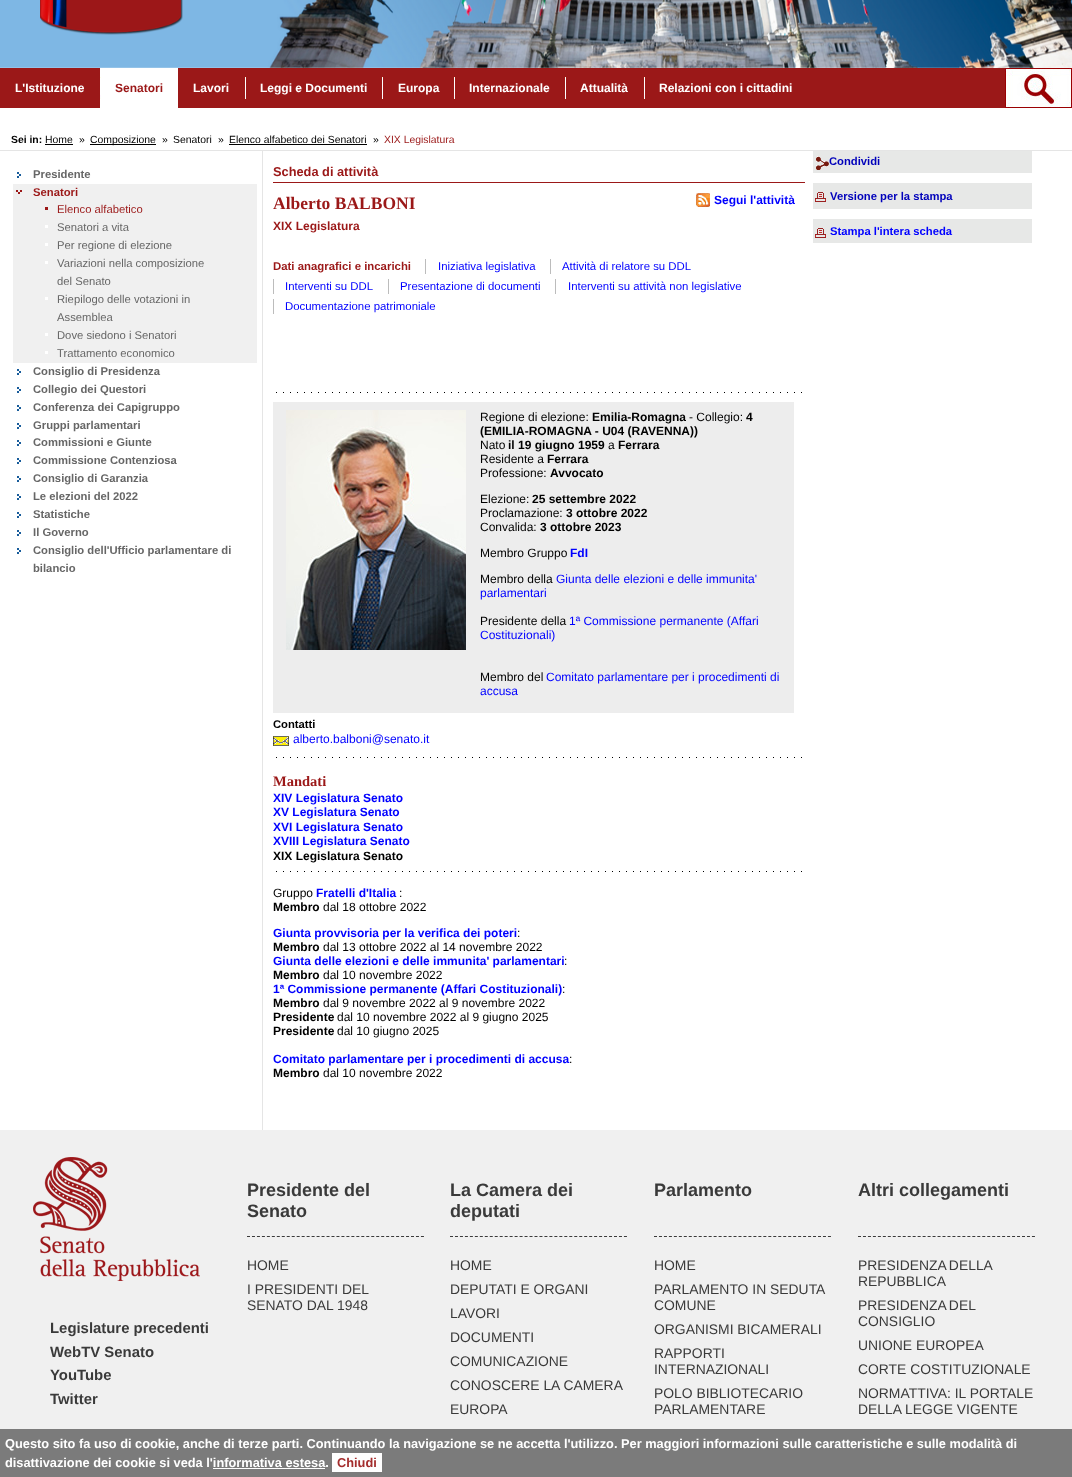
<svg xmlns="http://www.w3.org/2000/svg" width="1072" height="1477" viewBox="0 0 1072 1477">
  <style>
    .t1 { font: bold 12px Liberation Sans; fill: #fff; }
    .t2 { font: bold 12px Liberation Sans; fill: #9b1818; }
    .t3 { font: bold 10.4px Liberation Sans; fill: #000; }
    .t4 { font: 10.4px Liberation Sans; fill: #000; }
    .t5 { font: 10.4px Liberation Sans; fill: #9b1818; }
    .t6 { font: bold 11.25px Liberation Sans; fill: #666; }
    .t7 { font: bold 11.25px Liberation Sans; fill: #9b1818; }
    .t8 { font: 11.25px Liberation Sans; fill: #9b1818; }
    .t9 { font: 11.25px Liberation Sans; fill: #666; }
    .t10 { font: bold 12.8px Liberation Sans; fill: #9b1818; }
    .t11 { font: bold 17.5px Liberation Serif; fill: #9b1818; }
    .t12 { font: bold 12px Liberation Sans; fill: #00f; }
    .t13 { font: bold 11.4px Liberation Sans; fill: #9b1818; }
    .t14 { font: 11.4px Liberation Sans; fill: #00f; }
    .t15 { font: 12px Liberation Sans; fill: #000; }
    .t16 { font: bold 12px Liberation Sans; fill: #000; }
    .t17 { font: 12px Liberation Sans; fill: #00f; }
    .t18 { font: bold 11.25px Liberation Sans; fill: #000; }
    .t19 { font: bold 14.5px Liberation Serif; fill: #9b1818; }
    .t20 { font: bold 11.25px Liberation Sans; fill: #00b; }
    .t21 { font: bold 11.25px Liberation Sans; fill: #00f; }
    .t22 { font: bold 14.9px Liberation Sans; fill: #3a3a3a; }
    .t23 { font: bold 18px Liberation Sans; fill: #3a3a3a; }
    .t24 { font: 13.9px Liberation Sans; fill: #3a3a3a; }
    .t25 { font: bold 12.8px Liberation Sans; fill: #fff; }
    .t26 { font: bold 12.8px Liberation Sans; fill: #a42e2e; }
  </style>
  <rect width="100%" height="100%" fill="#fff"/>
  <image x="0" y="0" width="1072" height="68" href="images/1.png"/>
  <image x="40" y="0" width="143" height="35" href="images/2.png"/>
  <rect x="0" y="68" width="1005" height="40" fill="#9b1818"/>
  <text x="15" y="92" class="t1">L'Istituzione</text>
  <rect x="100" y="68" width="78" height="40" fill="#fff"/>
  <image x="100" y="77" width="1" height="22" href="images/3.png"/>
  <text x="115" y="92" class="t2">Senatori</text>
  <text x="193" y="92" class="t1">Lavori</text>
  <image x="245" y="77" width="1" height="22" href="images/3.png"/>
  <text x="260" y="92" class="t1">Leggi e Documenti</text>
  <image x="382" y="77" width="1" height="22" href="images/3.png"/>
  <text x="398" y="92" class="t1">Europa</text>
  <image x="454" y="77" width="1" height="22" href="images/3.png"/>
  <text x="469" y="92" class="t1">Internazionale</text>
  <image x="565" y="77" width="1" height="22" href="images/3.png"/>
  <text x="580" y="92" class="t1">Attualità</text>
  <image x="644" y="77" width="1" height="22" href="images/3.png"/>
  <text x="659" y="92" class="t1">Relazioni con i cittadini</text>
  <image x="1005" y="68" width="67" height="40" href="images/4.png"/>
  <rect x="0" y="150" width="1072" height="1" fill="#e5e5e5"/>
  <text x="11" y="143" class="t3">Sei in:</text>
  <text x="45" y="143" class="t4">Home</text>
  <rect x="45" y="144" width="28" height="1" fill="#000"/>
  <text x="79" y="143" class="t4">»</text>
  <rect x="90" y="144" width="66" height="1" fill="#000"/>
  <text x="90" y="143" class="t4">Composizione</text>
  <text x="162" y="143" class="t4">»</text>
  <text x="173" y="143" class="t4">Senatori</text>
  <text x="218" y="143" class="t4">»</text>
  <text x="229" y="143" class="t4">Elenco alfabetico dei Senatori</text>
  <rect x="229" y="144" width="138" height="1" fill="#000"/>
  <text x="373" y="143" class="t4">»</text>
  <text x="384" y="143" class="t5">XIX Legislatura</text>
  <image x="17" y="172" width="4" height="6" href="images/5.png"/>
  <text x="33" y="178" class="t6">Presidente</text>
  <rect x="13" y="184" width="244" height="179" fill="#f0f0f0"/>
  <image x="16" y="190" width="6" height="4" href="images/6.png"/>
  <text x="33" y="196" class="t7">Senatori</text>
  <rect x="45" y="207" width="3" height="3" fill="#9b1818"/>
  <text x="57" y="213" class="t8">Elenco alfabetico</text>
  <rect x="45" y="225" width="3" height="3" fill="#fff"/>
  <text x="57" y="231" class="t9">Senatori a vita</text>
  <rect x="45" y="243" width="3" height="3" fill="#fff"/>
  <text x="57" y="249" class="t9">Per regione di elezione</text>
  <rect x="45" y="261" width="3" height="3" fill="#fff"/>
  <text x="57" y="267" class="t9">Variazioni nella composizione</text>
  <text x="57" y="285" class="t9">del Senato</text>
  <rect x="45" y="297" width="3" height="3" fill="#fff"/>
  <text x="57" y="303" class="t9">Riepilogo delle votazioni in</text>
  <text x="57" y="321" class="t9">Assemblea</text>
  <rect x="45" y="333" width="3" height="3" fill="#fff"/>
  <text x="57" y="339" class="t9">Dove siedono i Senatori</text>
  <rect x="45" y="351" width="3" height="3" fill="#fff"/>
  <text x="57" y="357" class="t9">Trattamento economico</text>
  <image x="17" y="369" width="4" height="6" href="images/5.png"/>
  <text x="33" y="375" class="t6">Consiglio di Presidenza</text>
  <image x="17" y="387" width="4" height="6" href="images/5.png"/>
  <text x="33" y="393" class="t6">Collegio dei Questori</text>
  <image x="17" y="405" width="4" height="6" href="images/5.png"/>
  <text x="33" y="411" class="t6">Conferenza dei Capigruppo</text>
  <image x="17" y="423" width="4" height="6" href="images/5.png"/>
  <text x="33" y="429" class="t6">Gruppi parlamentari</text>
  <image x="17" y="440" width="4" height="6" href="images/5.png"/>
  <text x="33" y="446" class="t6">Commissioni e Giunte</text>
  <image x="17" y="458" width="4" height="6" href="images/5.png"/>
  <text x="33" y="464" class="t6">Commissione Contenziosa</text>
  <image x="17" y="476" width="4" height="6" href="images/5.png"/>
  <text x="33" y="482" class="t6">Consiglio di Garanzia</text>
  <image x="17" y="494" width="4" height="6" href="images/5.png"/>
  <text x="33" y="500" class="t6">Le elezioni del 2022</text>
  <image x="17" y="512" width="4" height="6" href="images/5.png"/>
  <text x="33" y="518" class="t6">Statistiche</text>
  <image x="17" y="530" width="4" height="6" href="images/5.png"/>
  <text x="33" y="536" class="t6">Il Governo</text>
  <image x="17" y="548" width="4" height="6" href="images/5.png"/>
  <text x="33" y="554" class="t6">Consiglio dell'Ufficio parlamentare di</text>
  <text x="33" y="572" class="t6">bilancio</text>
  <rect x="262" y="151" width="1" height="979" fill="#e5e5e5"/>
  <rect x="273" y="182" width="532" height="1" fill="#9b1818"/>
  <text x="273" y="176" class="t10">Scheda di attività</text>
  <text x="273" y="209" class="t11">Alberto BALBONI</text>
  <image x="696" y="193" width="14" height="14" href="images/7.png"/>
  <text x="714" y="204" class="t12">Segui l'attività</text>
  <text x="273" y="230" class="t2">XIX Legislatura</text>
  <text x="273" y="270" class="t13">Dati anagrafici e incarichi</text>
  <rect x="425" y="259" width="1" height="15" fill="#bcbcbc"/>
  <text x="438" y="270" class="t14">Iniziativa legislativa</text>
  <rect x="550" y="259" width="1" height="15" fill="#bcbcbc"/>
  <text x="562" y="270" class="t14">Attività di relatore su DDL</text>
  <rect x="273" y="279" width="1" height="15" fill="#bcbcbc"/>
  <text x="285" y="290" class="t14">Interventi su DDL</text>
  <rect x="388" y="279" width="1" height="15" fill="#bcbcbc"/>
  <text x="400" y="290" class="t14">Presentazione di documenti</text>
  <rect x="555" y="279" width="1" height="15" fill="#bcbcbc"/>
  <text x="568" y="290" class="t14">Interventi su attività non legislative</text>
  <rect x="273" y="299" width="1" height="15" fill="#bcbcbc"/>
  <text x="285" y="310" class="t14">Documentazione patrimoniale</text>
  <image x="276" y="392" width="526" height="1" href="images/8.png"/>
  <rect x="273" y="402" width="521" height="311" fill="#ededed"/>
  <image x="286" y="410" width="180" height="240" href="images/9.png"/>
  <text x="480" y="421" class="t15">Regione di elezione:</text>
  <text x="592" y="421" class="t16">Emilia-Romagna</text>
  <text x="689" y="421" class="t15">- Collegio:</text>
  <text x="746" y="421" class="t16">4</text>
  <text x="480" y="435" class="t16">(EMILIA-ROMAGNA - U04 (RAVENNA))</text>
  <text x="480" y="449" class="t15">Nato</text>
  <text x="508" y="449" class="t16">il 19 giugno 1959</text>
  <text x="608" y="449" class="t15">a</text>
  <text x="618" y="449" class="t16">Ferrara</text>
  <text x="480" y="463" class="t15">Residente a</text>
  <text x="547" y="463" class="t16">Ferrara</text>
  <text x="480" y="477" class="t15">Professione:</text>
  <text x="550" y="477" class="t16">Avvocato</text>
  <text x="480" y="503" class="t15">Elezione:</text>
  <text x="532" y="503" class="t16">25 settembre 2022</text>
  <text x="480" y="517" class="t15">Proclamazione:</text>
  <text x="566" y="517" class="t16">3 ottobre 2022</text>
  <text x="480" y="531" class="t15">Convalida:</text>
  <text x="540" y="531" class="t16">3 ottobre 2023</text>
  <text x="480" y="557" class="t15">Membro Gruppo</text>
  <text x="570" y="557" class="t12">FdI</text>
  <text x="480" y="583" class="t15">Membro della</text>
  <text x="556" y="583" class="t17">Giunta delle elezioni e delle immunita'</text>
  <text x="480" y="597" class="t17">parlamentari</text>
  <text x="480" y="625" class="t15">Presidente della</text>
  <text x="569" y="625" class="t17">1ª Commissione permanente (Affari</text>
  <text x="480" y="639" class="t17">Costituzionali)</text>
  <text x="480" y="681" class="t15">Membro del</text>
  <text x="546" y="681" class="t17">Comitato parlamentare per i procedimenti di</text>
  <text x="480" y="695" class="t17">accusa</text>
  <text x="273" y="728" class="t18">Contatti</text>
  <image x="273" y="736" width="16" height="10" href="images/10.png"/>
  <text x="293" y="743" class="t17">alberto.balboni@senato.it</text>
  <image x="276" y="757" width="526" height="1" href="images/8.png"/>
  <text x="273" y="786" class="t19">Mandati</text>
  <text x="273" y="802" class="t12">XIV Legislatura Senato</text>
  <text x="273" y="816" class="t12">XV Legislatura Senato</text>
  <text x="273" y="831" class="t12">XVI Legislatura Senato</text>
  <text x="273" y="845" class="t12">XVIII Legislatura Senato</text>
  <text x="273" y="860" class="t16">XIX Legislatura Senato</text>
  <image x="276" y="871" width="526" height="1" href="images/8.png"/>
  <text x="273" y="897" class="t15">Gruppo</text>
  <text x="316" y="897" class="t12">Fratelli d'Italia</text>
  <text x="399" y="897" class="t15">:</text>
  <text x="273" y="911" class="t16">Membro</text>
  <text x="323" y="911" class="t15">dal 18 ottobre 2022</text>
  <text x="273" y="937" class="t12">Giunta provvisoria per la verifica dei poteri</text>
  <text x="517" y="937" class="t15">:</text>
  <text x="273" y="951" class="t16">Membro</text>
  <text x="323" y="951" class="t15">dal 13 ottobre 2022 al 14 novembre 2022</text>
  <text x="273" y="965" class="t12">Giunta delle elezioni e delle immunita' parlamentari</text>
  <text x="564" y="965" class="t15">:</text>
  <text x="273" y="979" class="t16">Membro</text>
  <text x="323" y="979" class="t15">dal 10 novembre 2022</text>
  <text x="273" y="993" class="t12">1ª Commissione permanente (Affari Costituzionali)</text>
  <text x="562" y="993" class="t15">:</text>
  <text x="273" y="1007" class="t16">Membro</text>
  <text x="323" y="1007" class="t15">dal 9 novembre 2022 al 9 novembre 2022</text>
  <text x="273" y="1021" class="t16">Presidente</text>
  <text x="337" y="1021" class="t15">dal 10 novembre 2022 al 9 giugno 2025</text>
  <text x="273" y="1035" class="t16">Presidente</text>
  <text x="337" y="1035" class="t15">dal 10 giugno 2025</text>
  <text x="273" y="1063" class="t12">Comitato parlamentare per i procedimenti di accusa</text>
  <text x="569" y="1063" class="t15">:</text>
  <text x="273" y="1077" class="t16">Membro</text>
  <text x="323" y="1077" class="t15">dal 10 novembre 2022</text>
  <rect x="813" y="151" width="219" height="22" fill="#e7e8e7"/>
  <image x="816" y="156" width="13" height="14" href="images/11.png"/>
  <text x="829" y="165" class="t20">Condividi</text>
  <rect x="813" y="183" width="219" height="26" fill="#e7e8e7"/>
  <image x="815" y="192" width="11" height="10" href="images/12.png"/>
  <text x="830" y="200" class="t20">Versione per la stampa</text>
  <rect x="813" y="219" width="219" height="24" fill="#e7e8e7"/>
  <image x="815" y="228" width="11" height="10" href="images/12.png"/>
  <text x="830" y="235" class="t21">Stampa l'intera scheda</text>
  <rect x="0" y="1130" width="1072" height="347" fill="#f0f0f0"/>
  <image x="33" y="1157" width="167" height="124" href="images/13.png"/>
  <text x="50" y="1333" class="t22">Legislature precedenti</text>
  <text x="50" y="1357" class="t22">WebTV Senato</text>
  <text x="50" y="1380" class="t22">YouTube</text>
  <text x="50" y="1404" class="t22">Twitter</text>
  <path d="M247 1236.5H424" fill="none" stroke="#3a3a3a" stroke-dasharray="3 1.97"/>
  <text x="247" y="1196" class="t23">Presidente del</text>
  <text x="247" y="1217" class="t23">Senato</text>
  <text x="247" y="1270" class="t24">HOME</text>
  <text x="247" y="1294" class="t24">I PRESIDENTI DEL</text>
  <text x="247" y="1310" class="t24">SENATO DAL 1948</text>
  <path d="M450 1236.5H627" fill="none" stroke="#3a3a3a" stroke-dasharray="3 1.97"/>
  <text x="450" y="1196" class="t23">La Camera dei</text>
  <text x="450" y="1217" class="t23">deputati</text>
  <text x="450" y="1270" class="t24">HOME</text>
  <text x="450" y="1294" class="t24">DEPUTATI E ORGANI</text>
  <text x="450" y="1318" class="t24">LAVORI</text>
  <text x="450" y="1342" class="t24">DOCUMENTI</text>
  <text x="450" y="1366" class="t24">COMUNICAZIONE</text>
  <text x="450" y="1390" class="t24">CONOSCERE LA CAMERA</text>
  <text x="450" y="1414" class="t24">EUROPA</text>
  <path d="M654 1236.5H831" fill="none" stroke="#3a3a3a" stroke-dasharray="3 1.97"/>
  <text x="654" y="1196" class="t23">Parlamento</text>
  <text x="654" y="1270" class="t24">HOME</text>
  <text x="654" y="1294" class="t24">PARLAMENTO IN SEDUTA</text>
  <text x="654" y="1310" class="t24">COMUNE</text>
  <text x="654" y="1334" class="t24">ORGANISMI BICAMERALI</text>
  <text x="654" y="1358" class="t24">RAPPORTI</text>
  <text x="654" y="1374" class="t24">INTERNAZIONALI</text>
  <text x="654" y="1398" class="t24">POLO BIBLIOTECARIO</text>
  <text x="654" y="1414" class="t24">PARLAMENTARE</text>
  <path d="M858 1236.5H1035" fill="none" stroke="#3a3a3a" stroke-dasharray="3 1.97"/>
  <text x="858" y="1196" class="t23">Altri collegamenti</text>
  <text x="858" y="1270" word-spacing="-1" class="t24">PRESIDENZA DELLA</text>
  <text x="858" y="1286" class="t24">REPUBBLICA</text>
  <text x="858" y="1310" word-spacing="-1" class="t24">PRESIDENZA DEL</text>
  <text x="858" y="1326" class="t24">CONSIGLIO</text>
  <text x="858" y="1350" class="t24">UNIONE EUROPEA</text>
  <text x="858" y="1374" class="t24">CORTE COSTITUZIONALE</text>
  <text x="858" y="1398" class="t24">NORMATTIVA: IL PORTALE</text>
  <text x="858" y="1414" class="t24">DELLA LEGGE VIGENTE</text>
  <rect x="0" y="1429" width="1072" height="48" fill="#6e6e6ee6"/>
  <text x="5" y="1448" class="t25">Questo sito fa uso di cookie, anche di terze parti. Continuando la navigazione se ne accetta l'utilizzo. Per maggiori informazioni sulle caratteristiche e sulle modalità di</text>
  <text x="5" y="1467" class="t25">disattivazione dei cookie si veda l'informativa estesa.</text>
  <rect x="332" y="1453" width="50" height="19" fill="#fefefe"/>
  <text x="337" y="1467" class="t26">Chiudi</text>
  <rect x="213" y="1468" width="112" height="1" fill="#fefefe"/>
</svg>
